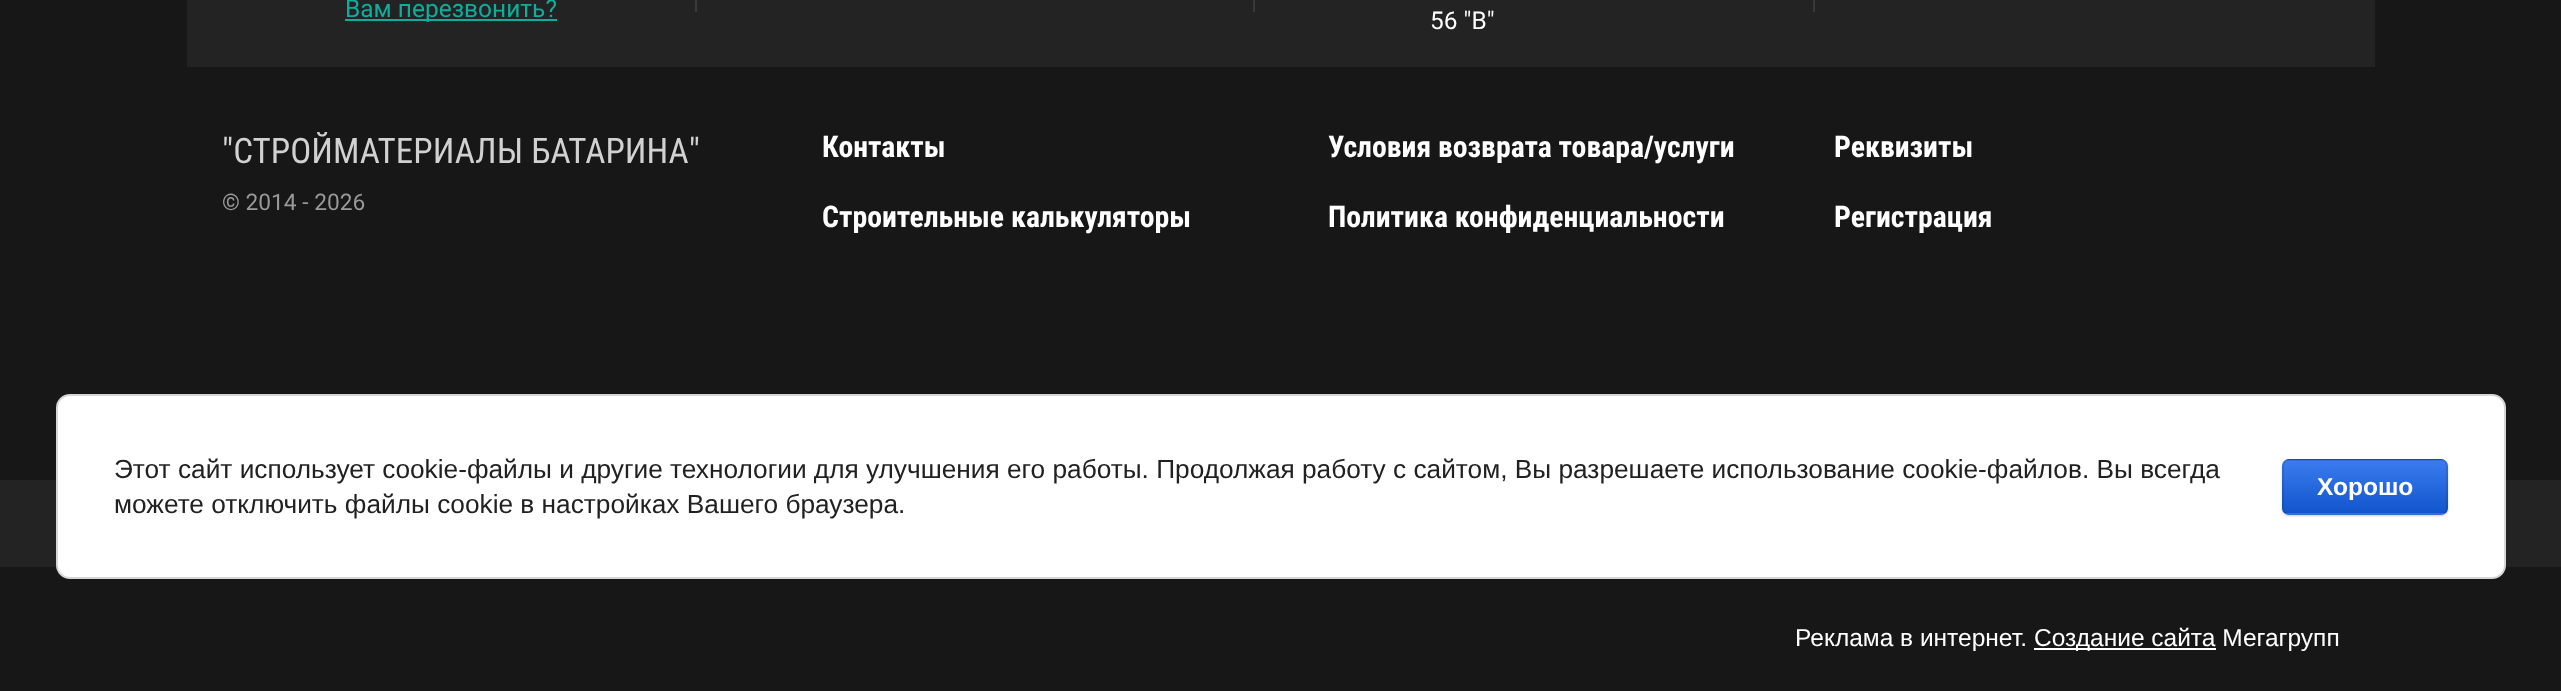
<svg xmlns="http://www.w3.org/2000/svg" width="2561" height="691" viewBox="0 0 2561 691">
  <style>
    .t1 { font: 24.5px Roboto; fill: #0cae9d; }
    .t2 { font: 24.5px Roboto; fill: #fff; }
    .t3 { font: 35px Roboto Condensed; fill: #d1d1d1; }
    .t4 { font: 22.75px Roboto; fill: #999; }
    .t5 { font: bold 29.75px Roboto Condensed; fill: #fff; }
    .t6 { font: 24.5px Liberation Sans; fill: #fff; }
    .t7 { font: 26.25px Liberation Sans; fill: #212121; }
    .t8 { font: bold 24.5px Liberation Sans; fill: #fff; }
  </style>
  <defs>
    <clipPath id="clip1"><rect x="2282" y="459" width="166" height="56" rx="7"/></clipPath>
    <linearGradient id="g1" gradientUnits="userSpaceOnUse" x1="2365" y1="408" x2="2365" y2="460"><stop offset="0" stop-color="#3b7cef"/><stop offset="1" stop-color="#15c"/></linearGradient>
    <linearGradient id="g2" gradientUnits="userSpaceOnUse" x1="2365" y1="460" x2="2365" y2="513"><stop offset="0" stop-color="#3b7cef"/><stop offset="1" stop-color="#15c"/></linearGradient>
    <linearGradient id="g3" gradientUnits="userSpaceOnUse" x1="2365" y1="513" x2="2365" y2="565"><stop offset="0" stop-color="#3b7cef"/><stop offset="1" stop-color="#15c"/></linearGradient>
  </defs>
  <rect width="100%" height="100%" fill="#181717"/>
  <rect x="187" y="0" width="2188" height="67" fill="#242323"/>
  <rect x="345" y="19" width="212" height="2" fill="#0cae9d"/>
  <text x="345" y="17" class="t1">Вам перезвонить?</text>
  <rect x="695" y="0" width="2" height="12" fill="#3a3939"/>
  <rect x="1253" y="0" width="2" height="12" fill="#3a3939"/>
  <rect x="1813" y="0" width="2" height="12" fill="#3a3939"/>
  <text x="1430" y="29" class="t2">56 "В"</text>
  <text x="222" y="163" class="t3">"СТРОЙМАТЕРИАЛЫ БАТАРИНА"</text>
  <text x="222" y="210" class="t4">© 2014 - 2026</text>
  <text x="822" y="157" class="t5">Контакты</text>
  <text x="1328" y="157" class="t5">Условия возврата товара/услуги</text>
  <text x="1834" y="157" class="t5">Реквизиты</text>
  <text x="822" y="227" class="t5">Строительные калькуляторы</text>
  <text x="1328" y="227" class="t5">Политика конфиденциальности</text>
  <text x="1834" y="227" class="t5">Регистрация</text>
  <rect x="0" y="480" width="2561" height="87" fill="#242323"/>
  <text x="1795" y="646" class="t6">Реклама в интернет.</text>
  <rect x="2034" y="648" width="182" height="2" fill="#fff"/>
  <text x="2034" y="646" class="t6">Создание сайта Мегагрупп</text>
  <rect x="57" y="395" width="2448" height="183" rx="13" fill="#fff" stroke="#d6d6d6" stroke-width="2"/>
  <text x="114" y="478" class="t7">Этот сайт использует cookie-файлы и другие технологии для улучшения его работы. Продолжая работу с сайтом, Вы разрешаете использование cookie-файлов. Вы всегда</text>
  <text x="114" y="513" class="t7">можете отключить файлы cookie в настройках Вашего браузера.</text>
  <rect x="2282" y="460" width="166" height="56" rx="7" fill="#00000033" filter="blur(1px)"/>
  <g clip-path="url(#clip1)">
    <rect x="2282" y="459" width="166" height="1" fill="url(#g1)"/>
    <rect x="2282" y="460" width="166" height="53" fill="url(#g2)"/>
    <rect x="2282" y="513" width="166" height="2" fill="url(#g3)"/>
  </g>
  <rect x="2283" y="460" width="164" height="54" rx="6" fill="none" stroke="#0000001a" stroke-width="2"/>
  <text x="2317" y="495" class="t8">Хорошо</text>
</svg>
